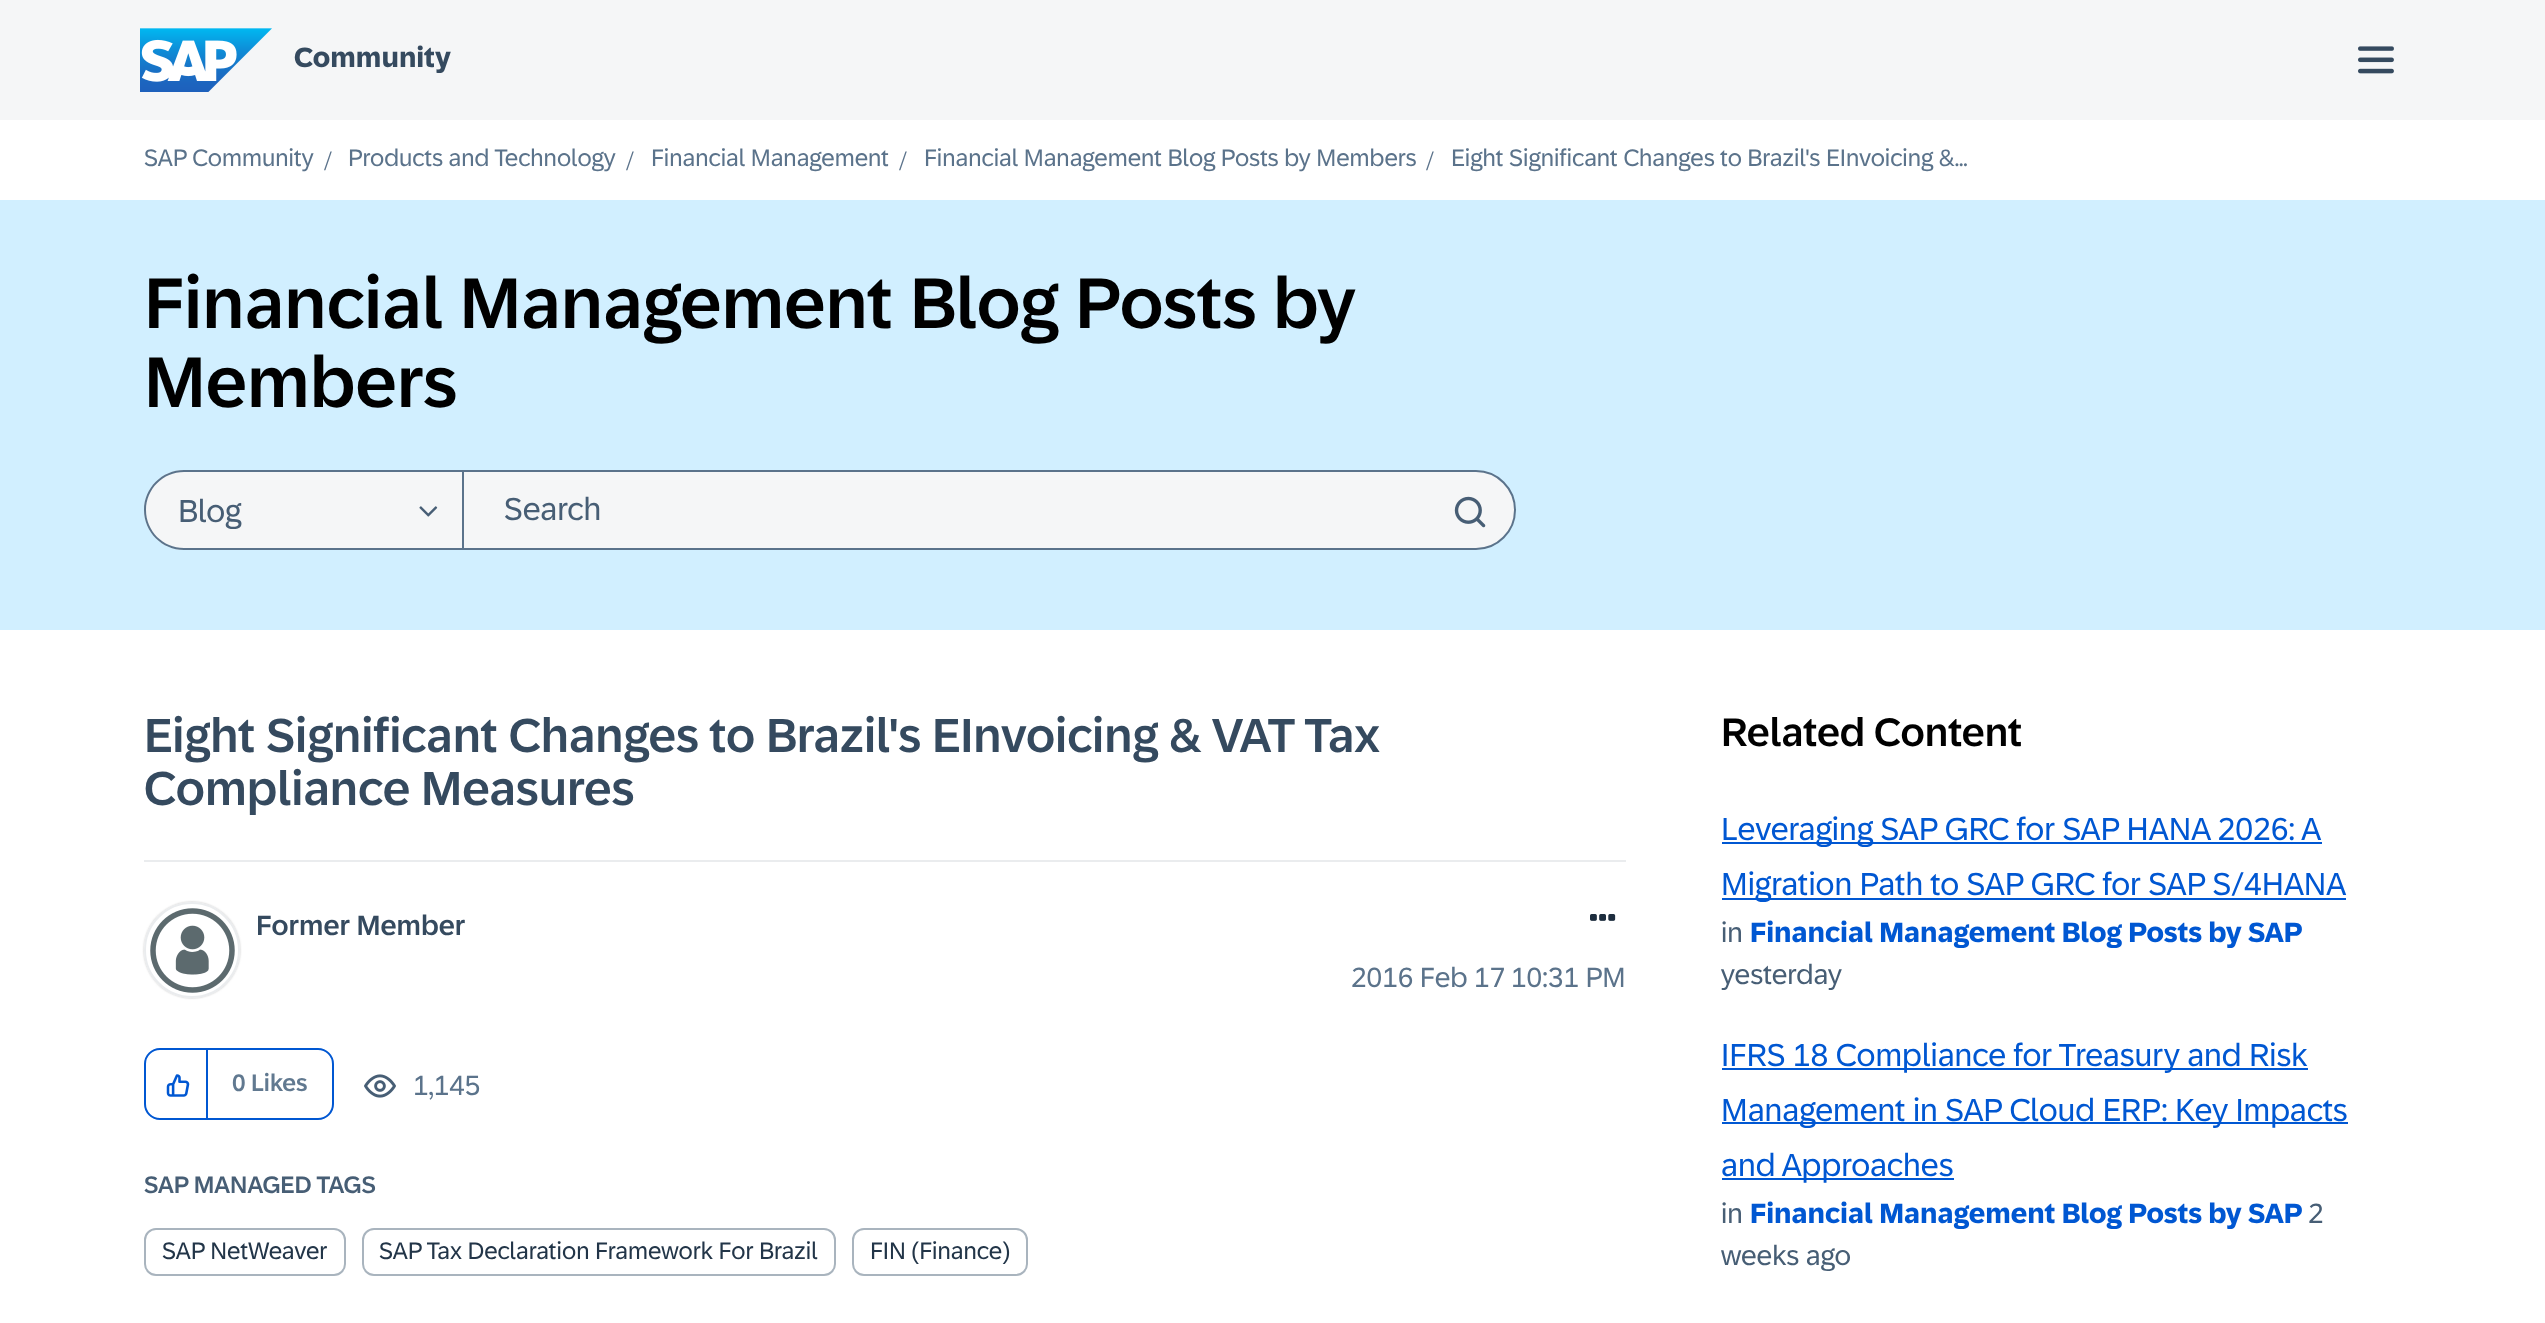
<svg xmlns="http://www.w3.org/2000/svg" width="2545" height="1323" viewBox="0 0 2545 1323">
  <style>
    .t1 { font: bold 28px '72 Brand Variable'; fill: #354a5f; }
    .t2 { font: 24px '72 Brand Variable'; fill: #5b738b; }
    .t3 { font: 28px Liberation Serif; fill: #5b738b; }
    .t4 { font: 500 72px '72 Brand Variable'; fill: #000; }
    .t5 { font: 32px '72 Brand Variable'; fill: #475e75; }
    .t6 { font: 500 48px '72 Brand Variable'; fill: #354a5f; }
    .t7 { font: 500 28px '72 Brand Variable'; fill: #354a5f; }
    .t8 { font: 28px '72 Brand Variable'; fill: #5b738b; }
    .t9 { font: 500 24px '72 Brand Variable'; fill: #617990; }
    .t10 { font: 500 24px '72 Brand Variable'; fill: #475e75; }
    .t11 { font: 24px '72 Brand Variable'; fill: #223548; }
    .t12 { font: 500 40px '72 Brand Variable'; fill: #000; }
    .t13 { font: 32px '72 Brand Variable'; fill: #0057d2; }
    .t14 { font: 28px '72 Brand Variable'; fill: #475e75; }
    .t15 { font: bold 28px '72 Brand Variable'; fill: #0057d2; }
  </style>
  <defs>
    <clipPath id="clip1"><path d="M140 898H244V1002H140ZM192 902C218.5 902 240 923.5 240 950C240 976.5 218.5 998 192 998C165.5 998 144 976.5 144 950C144 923.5 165.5 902 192 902Z" clip-rule="evenodd"/></clipPath>
  </defs>
  <rect width="100%" height="100%" fill="#fff"/>
  <rect x="0" y="0" width="2545" height="120" fill="#f5f6f7"/>
  <image x="140" y="28" width="132" height="64" href="images/1.png"/>
  <text x="294" y="67" class="t1">Community</text>
  <image x="2358" y="46" width="36" height="28" href="images/2.png"/>
  <text x="144" y="166" class="t2">SAP Community</text>
  <text x="324" y="170" class="t3">/</text>
  <text x="348" y="166" class="t2">Products and Technology</text>
  <text x="626" y="170" class="t3">/</text>
  <text x="651" y="166" class="t2">Financial Management</text>
  <text x="899" y="170" class="t3">/</text>
  <text x="924" y="166" class="t2">Financial Management Blog Posts by Members</text>
  <text x="1426" y="170" class="t3">/</text>
  <text x="1451" y="166" class="t2">Eight Significant Changes to Brazil's EInvoicing &amp;...</text>
  <rect x="0" y="200" width="2545" height="430" fill="#d1efff"/>
  <text x="144" y="328" class="t4">Financial Management Blog Posts by</text>
  <text x="144" y="407" class="t4">Members</text>
  <path d="M184 470H462V550H184C162 550 144 532 144 510C144 488 162 470 184 470Z" fill="#f5f6f7"/>
  <path d="M184 470H462V550H184C162 550 144 532 144 510C144 488 162 470 184 470ZM184 472H462V548H184C163 548 146 531 146 510C146 489 163 472 184 472Z" fill="#5b738b" fill-rule="evenodd"/>
  <text x="178" y="522" class="t5">Blog</text>
  <image x="419" y="506" width="19" height="11" href="images/3.png"/>
  <path d="M463 471H1476C1497.5 471 1515 488.5 1515 510C1515 531.5 1497.5 549 1476 549H463Z" fill="#f5f6f7" stroke="#5b738b" stroke-width="2"/>
  <text x="504" y="520" class="t5">Search</text>
  <image x="1454" y="496" width="32" height="32" href="images/4.png"/>
  <rect x="144" y="860" width="1482" height="2" fill="#eaecee"/>
  <text x="144" y="752" class="t6">Eight Significant Changes to Brazil's EInvoicing &amp; VAT Tax</text>
  <text x="144" y="805" class="t6">Compliance Measures</text>
  <g clip-path="url(#clip1)">
    <rect x="144" y="902" width="96" height="96" rx="48" fill="#c4c4c4" filter="blur(1px)"/>
  </g>
  <circle cx="192" cy="950" r="47" fill="none" stroke="#eaecee" stroke-width="2"/>
  <image x="150" y="908" width="85" height="85" href="images/5.png"/>
  <text x="256" y="935" class="t7">Former Member</text>
  <image x="1590" y="914" width="26" height="7" href="images/6.png"/>
  <text x="1351" y="987" class="t8">2016 Feb 17</text>
  <text x="1511" y="987" class="t8">10:31 PM</text>
  <rect x="145" y="1049" width="188" height="70" rx="15" fill="none" stroke="#0057d2" stroke-width="2"/>
  <rect x="206" y="1050" width="2" height="70" fill="#0057d2"/>
  <image x="166" y="1074" width="24" height="23" href="images/7.png"/>
  <text x="232" y="1091" class="t9">0 Likes</text>
  <image x="364" y="1074" width="32" height="24" href="images/8.png"/>
  <text x="413" y="1095" class="t8">1,145</text>
  <text x="144" y="1193" class="t10">SAP MANAGED TAGS</text>
  <rect x="145" y="1229" width="200" height="46" rx="11" fill="none" stroke="#a9b4be" stroke-width="2"/>
  <text x="162" y="1259" class="t11">SAP NetWeaver</text>
  <rect x="363" y="1229" width="472" height="46" rx="11" fill="none" stroke="#a9b4be" stroke-width="2"/>
  <text x="379" y="1259" class="t11">SAP Tax Declaration Framework For Brazil</text>
  <rect x="853" y="1229" width="174" height="46" rx="11" fill="none" stroke="#a9b4be" stroke-width="2"/>
  <text x="870" y="1259" class="t11">FIN (Finance)</text>
  <text x="1721" y="746" class="t12">Related Content</text>
  <rect x="1722" y="842" width="600" height="2" fill="#0057d2"/>
  <text x="1721" y="840" class="t13">Leveraging SAP GRC for SAP HANA 2026: A</text>
  <rect x="1722" y="898" width="624" height="2" fill="#0057d2"/>
  <text x="1721" y="895" class="t13">Migration Path to SAP GRC for SAP S/4HANA</text>
  <text x="1721" y="942" class="t14">in</text>
  <text x="1750" y="942" class="t15">Financial Management Blog Posts by SAP</text>
  <text x="1721" y="984" class="t14">yesterday</text>
  <rect x="1722" y="1068" width="586" height="2" fill="#0057d2"/>
  <text x="1721" y="1066" class="t13">IFRS 18 Compliance for Treasury and Risk</text>
  <rect x="1722" y="1122" width="626" height="2" fill="#0057d2"/>
  <text x="1721" y="1121" class="t13">Management in SAP Cloud ERP: Key Impacts</text>
  <rect x="1722" y="1178" width="232" height="2" fill="#0057d2"/>
  <text x="1721" y="1176" class="t13">and Approaches</text>
  <text x="1721" y="1223" class="t14">in</text>
  <text x="1750" y="1223" class="t15">Financial Management Blog Posts by SAP</text>
  <text x="2308" y="1223" class="t14">2</text>
  <text x="1721" y="1265" class="t14">weeks ago</text>
</svg>
